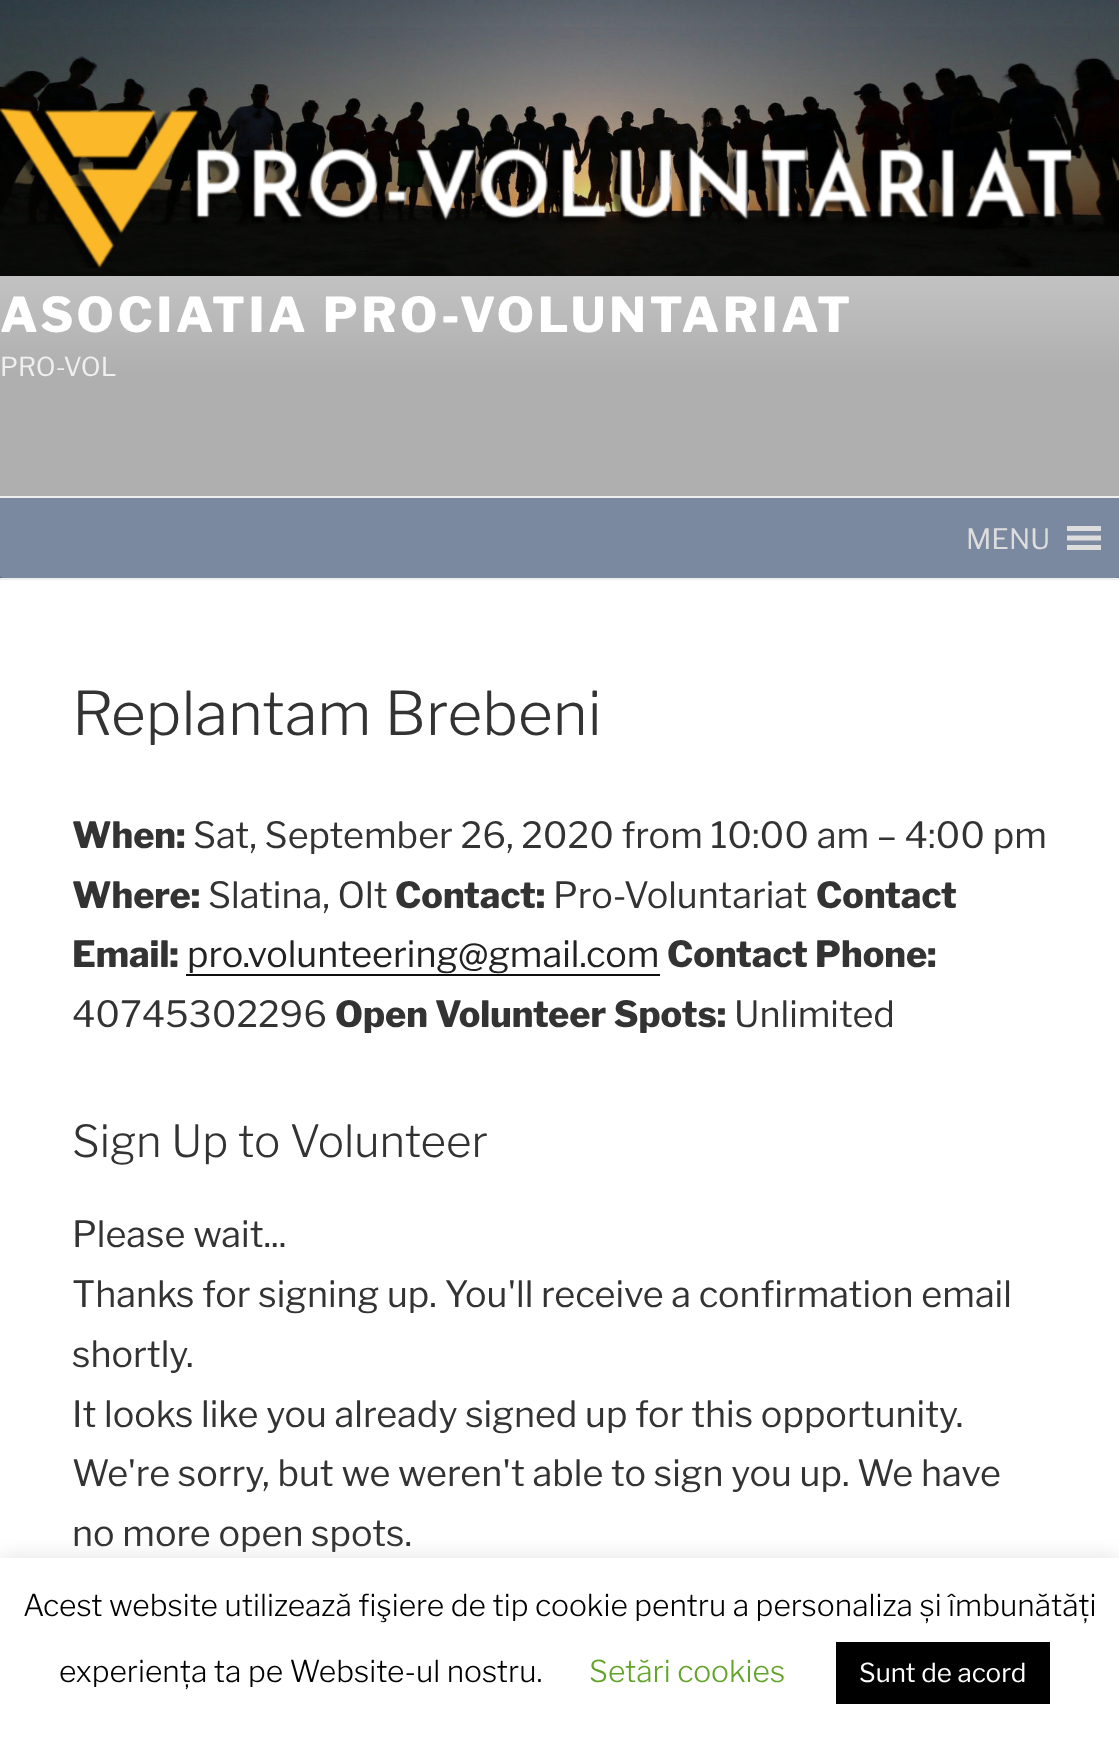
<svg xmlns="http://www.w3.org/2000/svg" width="1119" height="1738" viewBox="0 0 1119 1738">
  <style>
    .t1 { font: 800 48px Libre Franklin; letter-spacing: 3.8px; fill: #fff; }
    .t2 { font: 26px Libre Franklin; fill: #efefef; }
    .t3 { font: 28px Libre Franklin; fill: #ddd; }
    .t4 { font: 300 60px Libre Franklin; fill: #333; }
    .t5 { font: 800 36px Libre Franklin; fill: #333; }
    .t6 { font: 36px Libre Franklin; fill: #333; }
    .t7 { font: 36px Libre Franklin; fill: #222; }
    .t8 { font: 300 44px Libre Franklin; fill: #333; }
    .t9 { font: 300 30px Libre Franklin; fill: #000; }
    .t10 { font: 300 30px Libre Franklin; fill: #62a329; }
    .t11 { font: 26px Libre Franklin; fill: #fff; }
  </style>
  <defs>
    <linearGradient id="g1" gradientUnits="userSpaceOnUse" x1="560" y1="0" x2="560" y2="496"><stop offset="0" stop-color="#000" stop-opacity="0"/><stop offset="0.75" stop-color="#000" stop-opacity="0.3"/><stop offset="1" stop-color="#000" stop-opacity="0.3"/></linearGradient>
    <linearGradient id="g2" gradientUnits="userSpaceOnUse" x1="560" y1="498" x2="560" y2="578"><stop offset="0" stop-color="#7a88a0"/><stop offset="1" stop-color="#61708a"/></linearGradient>
  </defs>
  <rect width="100%" height="100%" fill="#fff"/>
  <rect x="0" y="276" width="1119" height="220" fill="#fafafa"/>
  <image x="0" y="0" width="1119" height="276" href="images/1.png"/>
  <rect x="0" y="27" width="1119" height="469" fill="url(#g1)"/>
  <image x="0" y="108" width="1072" height="160" href="images/2.png"/>
  <text x="0" y="332" class="t1">ASOCIATIA PRO-VOLUNTARIAT</text>
  <text x="0" y="376" class="t2">PRO-VOL</text>
  <rect x="0" y="498" width="1119" height="80" fill="url(#g2)"/>
  <rect x="0" y="496" width="1119" height="2" fill="#eee"/>
  <rect x="0" y="578" width="1119" height="2" fill="#eee"/>
  <rect x="0" y="498" width="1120" height="80" rx="4" fill="#7a88a0"/>
  <text x="966" y="549" class="t3">MENU</text>
  <path d="M1067 550H1101V545H1067ZM1067 526V531H1101V526ZM1067 540.5H1101V535.5H1067Z" fill="#ddd"/>
  <text x="72" y="735" class="t4">Replantam Brebeni</text>
  <text x="72" y="848" class="t5">When:</text>
  <text x="193" y="848" class="t6">Sat, September 26, 2020 from 10:00 am – 4:00 pm</text>
  <text x="72" y="908" class="t5">Where:</text>
  <text x="208" y="908" class="t6">Slatina, Olt</text>
  <text x="395" y="908" class="t5">Contact:</text>
  <text x="553" y="908" class="t6">Pro-Voluntariat</text>
  <text x="816" y="908" class="t5">Contact</text>
  <text x="72" y="967" class="t5">Email:</text>
  <text x="187" y="967" class="t7">pro.volunteering@gmail.com</text>
  <rect x="186" y="974" width="474" height="2" fill="#0f0f0f"/>
  <text x="667" y="967" class="t5">Contact Phone:</text>
  <text x="72" y="1027" class="t6">40745302296</text>
  <text x="335" y="1027" class="t5">Open Volunteer Spots:</text>
  <text x="734" y="1027" class="t6">Unlimited</text>
  <text x="72" y="1157" class="t8">Sign Up to Volunteer</text>
  <text x="72" y="1247" class="t6">Please wait...</text>
  <text x="72" y="1307" class="t6">Thanks for signing up. You'll receive a confirmation email</text>
  <text x="72" y="1367" class="t6">shortly.</text>
  <text x="72" y="1427" class="t6">It looks like you already signed up for this opportunity.</text>
  <text x="72" y="1486" class="t6">We're sorry, but we weren't able to sign you up. We have</text>
  <text x="72" y="1546" class="t6">no more open spots.</text>
  <rect x="0" y="1556" width="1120" height="180" fill="#acabab4d" filter="blur(10px)"/>
  <rect x="0" y="1558" width="1119" height="180" fill="#fff"/>
  <text x="23" y="1616" class="t9">Acest website utilizează fişiere de tip cookie pentru a personaliza și îmbunătăți</text>
  <text x="59" y="1682" class="t9">experiența ta pe Website-ul nostru.</text>
  <text x="589" y="1682" class="t10">Setări cookies</text>
  <rect x="836" y="1642" width="214" height="62" fill="#000"/>
  <text x="859" y="1682" class="t11">Sunt de acord</text>
</svg>
